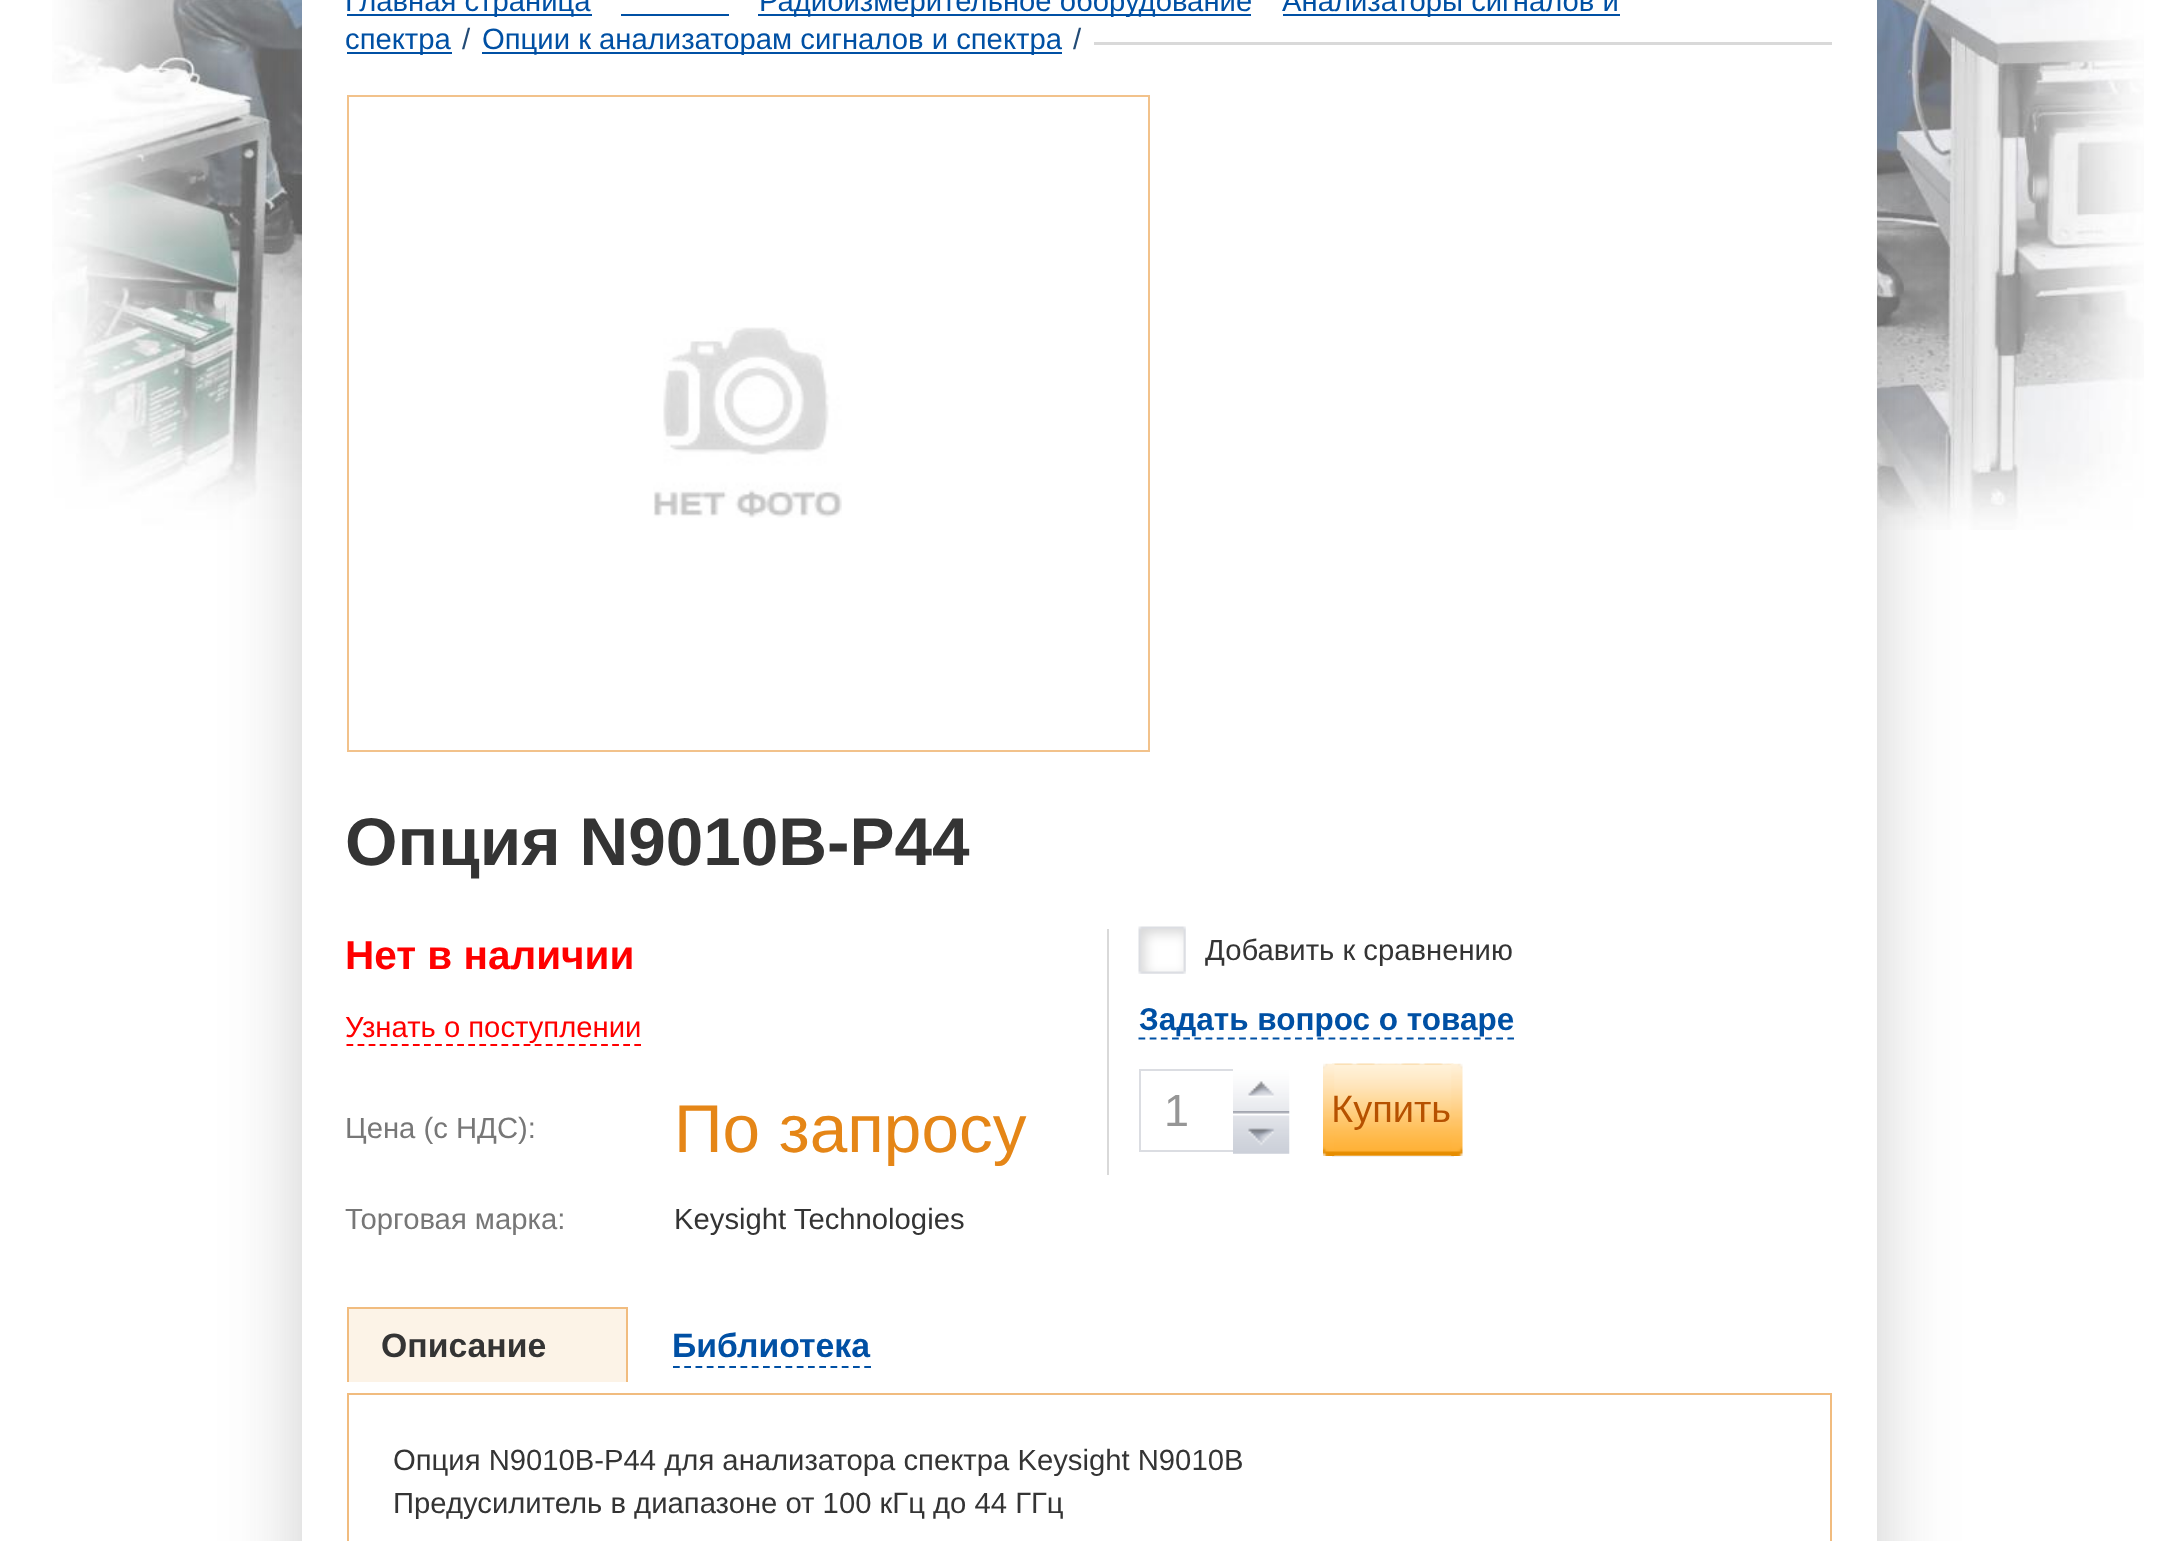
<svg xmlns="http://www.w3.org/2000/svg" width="2174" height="1541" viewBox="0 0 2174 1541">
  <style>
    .t1 { font: 29.25px Liberation Sans; fill: #0050a4; }
    .t2 { font: 29.25px Liberation Sans; fill: #224b76; }
    .t3 { font: bold 67.5px Liberation Sans; fill: #343434; }
    .t4 { font: bold 40.5px Liberation Sans; fill: #f00; }
    .t5 { font: 29.25px Liberation Sans; fill: #f00; }
    .t6 { font: 29.25px Liberation Sans; fill: #777; }
    .t7 { font: 67.5px Liberation Sans; fill: #e58617; }
    .t8 { font: 29.25px Liberation Sans; fill: #343434; }
    .t9 { font: bold 31.5px Liberation Sans; fill: #0050a4; }
    .t10 { font: 45px Liberation Sans; fill: #969696; }
    .t11 { font: 38px Liberation Sans; fill: #b65100; }
    .t12 { font: bold 33.75px Liberation Sans; fill: #343434; }
    .t13 { font: bold 33.75px Liberation Sans; fill: #0050a4; }
  </style>
  <rect width="100%" height="100%" fill="#fff"/>
  <image x="52" y="0" width="2092" height="530" href="images/1.png"/>
  <rect x="302" y="-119" width="1575" height="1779" fill="#32323240" filter="blur(39.5px)"/>
  <rect x="302" y="0" width="1575" height="1541" fill="#fff"/>
  <rect x="346" y="42" width="1486" height="3" fill="#d9d9d9"/>
  <rect x="347" y="14" width="245" height="2" fill="#0050a4"/>
  <text x="345" y="11" class="t1">Главная страница</text>
  <rect x="621" y="14" width="108" height="2" fill="#0050a4"/>
  <rect x="758" y="14" width="493" height="2" fill="#0050a4"/>
  <text x="759" y="11" class="t1">Радиоизмерительное оборудование</text>
  <rect x="1283" y="14" width="337" height="2" fill="#0050a4"/>
  <text x="1282" y="11" class="t1">Анализаторы сигналов и</text>
  <rect x="347" y="42" width="747" height="3" fill="#fff"/>
  <rect x="347" y="52" width="105" height="2" fill="#0050a4"/>
  <text x="345" y="49" class="t1">спектра</text>
  <text x="462" y="49" class="t2">/</text>
  <rect x="482" y="52" width="580" height="2" fill="#0050a4"/>
  <text x="482" y="49" class="t1">Опции к анализаторам сигналов и спектра</text>
  <text x="1073" y="49" class="t2">/</text>
  <rect x="348" y="96" width="801" height="655" fill="none" stroke="#f2c28b" stroke-width="2"/>
  <image x="653" y="327" width="189" height="191" href="images/2.png"/>
  <text x="345" y="865" class="t3">Опция N9010B-P44</text>
  <text x="345" y="969" class="t4">Нет в наличии</text>
  <path d="M346.5 1045H641" fill="none" stroke="#f00" stroke-width="2.2" stroke-dasharray="6.75 4.32"/>
  <text x="345" y="1037" class="t5">Узнать о поступлении</text>
  <text x="345" y="1138" class="t6">Цена (с НДС):</text>
  <text x="674" y="1152" class="t7">По запросу</text>
  <text x="345" y="1229" class="t6">Торговая марка:</text>
  <text x="674" y="1229" class="t8">Keysight Technologies</text>
  <rect x="1107" y="929" width="2" height="246" fill="#d9d9d9"/>
  <image x="1138" y="926" width="48" height="48" href="images/3.png"/>
  <text x="1205" y="960" class="t8">Добавить к сравнению</text>
  <text x="1139" y="1030" class="t9">Задать вопрос о товаре</text>
  <path d="M1138.5 1038.5H1514" fill="none" stroke="#0050a4" stroke-width="2.2" stroke-dasharray="6.75 4.43"/>
  <rect x="1140" y="1070" width="115" height="81" fill="none" stroke="#dbdde2" stroke-width="2"/>
  <text x="1164" y="1126" class="t10">1</text>
  <image x="1233" y="1069" width="57" height="42" href="images/4.png"/>
  <image x="1233" y="1111" width="57" height="43" href="images/5.png"/>
  <rect x="1332" y="1064" width="122" height="93" fill="#efefef"/>
  <image x="1332" y="1063" width="122" height="93" href="images/6.png"/>
  <text x="1331" y="1122" class="t11">Купить</text>
  <image x="1323" y="1063" width="12" height="93" href="images/7.png"/>
  <image x="1451" y="1063" width="12" height="93" href="images/8.png"/>
  <rect x="349" y="1309" width="277" height="73" fill="#fcf3e7"/>
  <rect x="347" y="1307" width="281" height="2" fill="#f1bc7f"/>
  <rect x="626" y="1307" width="2" height="75" fill="#f1bc7f"/>
  <rect x="347" y="1307" width="2" height="75" fill="#f1bc7f"/>
  <text x="381" y="1357" class="t12">Описание</text>
  <path d="M673 1367H871" fill="none" stroke="#0050a4" stroke-width="2.2" stroke-dasharray="6.75 4.5"/>
  <text x="672" y="1357" class="t13">Библиотека</text>
  <rect x="348" y="1394" width="1483" height="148" fill="none" stroke="#f1bc7f" stroke-width="2"/>
  <text x="393" y="1470" class="t8">Опция N9010B-P44 для анализатора спектра Keysight N9010B</text>
  <text x="393" y="1513" class="t8">Предусилитель в диапазоне от 100 кГц до 44 ГГц</text>
</svg>
